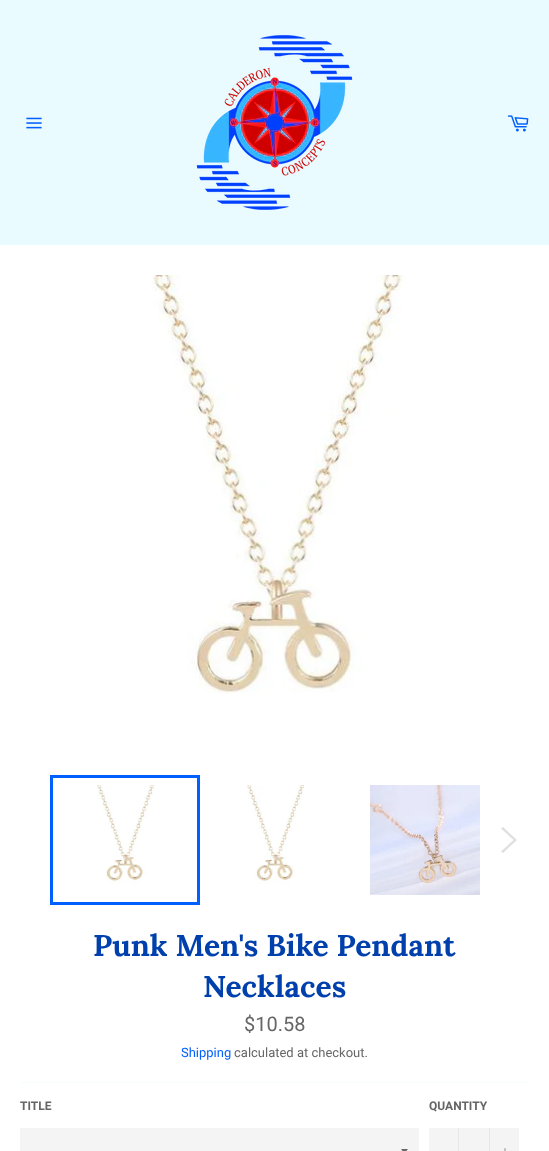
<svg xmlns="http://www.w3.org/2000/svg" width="549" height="1151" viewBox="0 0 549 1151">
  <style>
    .t1 { font: bold 30px Lora; fill: #0040ac; }
    .t2 { font: 20px Roboto; fill: #666; }
    .t3 { font: 13px Roboto; fill: #005fff; }
    .t4 { font: 13px Roboto; fill: #666; }
    .t5 { font: bold 12px Roboto; fill: #666; }
  </style>
  <rect width="100%" height="100%" fill="#eafbff"/>
  <image x="26" y="117" width="16" height="12" href="images/1.png"/>
  <image x="196" y="35" width="157" height="175" href="images/2.png"/>
  <image x="507" y="115" width="22" height="17" href="images/3.png"/>
  <rect x="0" y="245" width="549" height="906" fill="#fff"/>
  <image x="151" y="275" width="255" height="419" href="images/4.png"/>
  <image x="97" y="785" width="57" height="99" href="images/5.png"/>
  <rect x="51.5" y="776.5" width="147" height="127" fill="none" stroke="#005fff" stroke-width="3"/>
  <image x="247" y="785" width="57" height="99" href="images/5.png"/>
  <image x="370" y="785" width="110" height="110" href="images/6.png"/>
  <path d="M501 828.5L503 827L517 840L503 853L501 851.5L513.5 840Z" fill="#e0e0e0"/>
  <text x="93" y="956" class="t1">Punk Men's Bike Pendant</text>
  <text x="203" y="997" class="t1">Necklaces</text>
  <text x="244" y="1031" class="t2">$10.58</text>
  <text x="181" y="1057" class="t3">Shipping</text>
  <text x="234" y="1057" class="t4">calculated at checkout.</text>
  <rect x="20" y="1082" width="509" height="1" fill="#f5fdff"/>
  <text x="20" y="1110" class="t5">TITLE</text>
  <rect x="20" y="1128" width="399" height="23" fill="#f4f4f4"/>
  <path d="M401 1149C405.5 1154.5 403.5 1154.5 408 1149Z" fill="#666"/>
  <text x="429" y="1110" class="t5">QUANTITY</text>
  <rect x="429" y="1128" width="90" height="23" fill="#f4f4f4"/>
  <rect x="458" y="1128" width="1" height="23" fill="#e7e7e7"/>
  <rect x="489" y="1128" width="1" height="23" fill="#e7e7e7"/>
  <image x="504" y="1148" width="2" height="3" href="images/7.png"/>
</svg>
